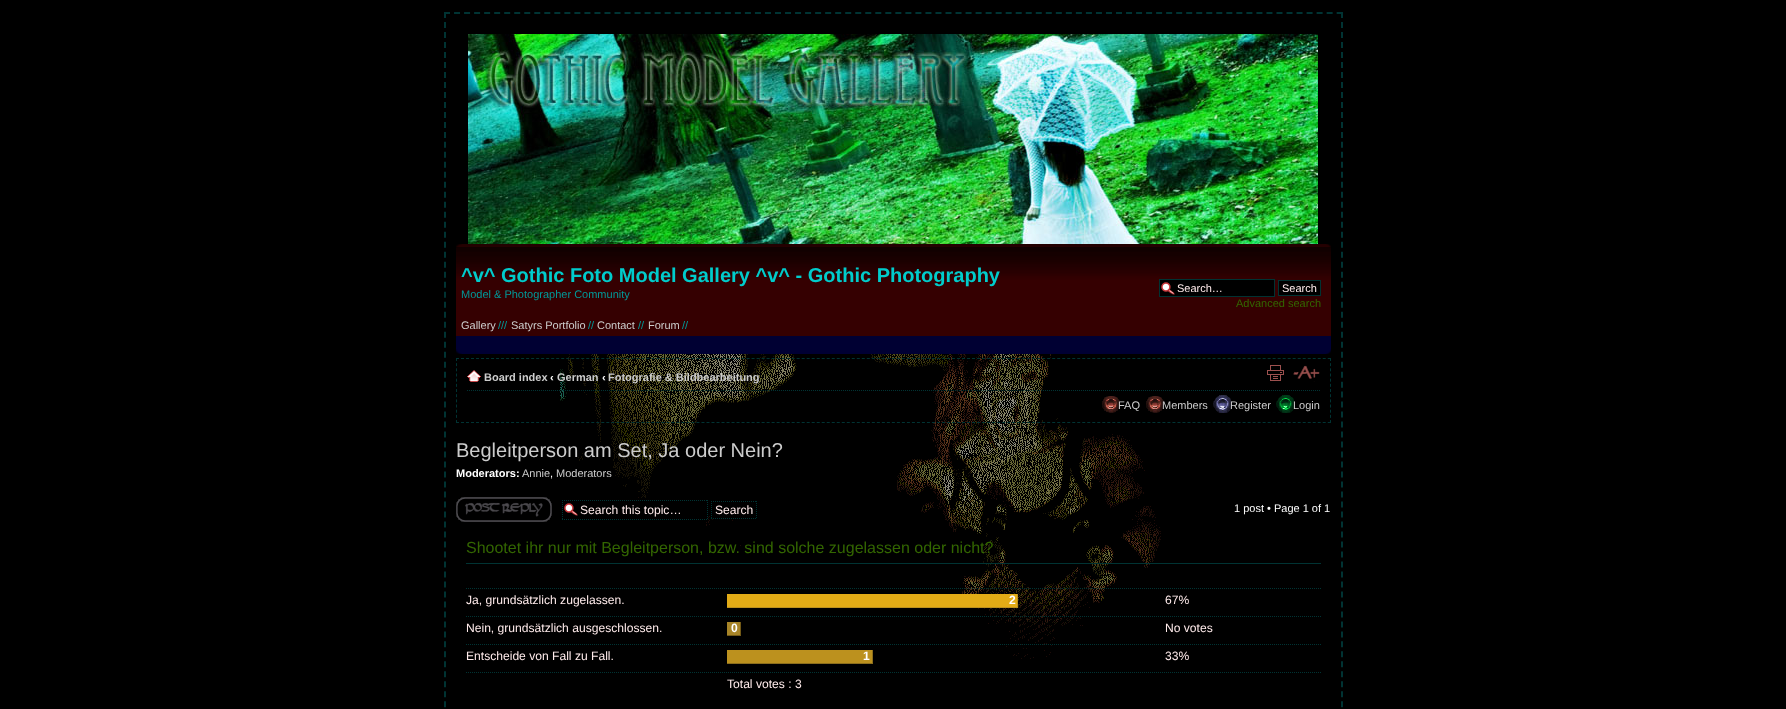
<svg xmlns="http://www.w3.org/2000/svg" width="1786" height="709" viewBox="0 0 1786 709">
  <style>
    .t1 { font: bold 20px Liberation Sans; fill: #0cc; }
    .t2 { font: 11px Liberation Sans; fill: #099; }
    .t3 { font: 11px Liberation Sans; fill: #ccc; }
    .t4 { font: 11px Liberation Sans; fill: #ffebeb; }
    .t5 { font: 11px Liberation Sans; fill: #360; }
    .t6 { font: bold 11px Liberation Sans; fill: #ccc; }
    .t7 { font: bold 11px Liberation Sans; fill: #fff; }
    .t8 { font: 20px Liberation Sans; fill: #ccc; }
    .t9 { font: 11px Liberation Sans; fill: #fff; }
    .t10 { font: 12.1px Liberation Sans; fill: #ffebeb; }
    .t11 { font: 16px Liberation Sans; fill: #360; }
    .t12 { font: bold 12.1px Liberation Sans; fill: #fff; }
  </style>
  <rect width="100%" height="100%" fill="#000"/>
  <image x="560" y="354" width="601" height="305" href="images/1.png"/>
  <path d="M444 13H1343" fill="none" stroke="#033" stroke-width="2" stroke-dasharray="6 4.03"/>
  <path d="M1342 12V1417" fill="none" stroke="#033" stroke-width="2" stroke-dasharray="6 3.99"/>
  <path d="M445 12V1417" fill="none" stroke="#033" stroke-width="2" stroke-dasharray="6 3.99"/>
  <image x="468" y="34" width="850" height="210" href="images/2.png"/>
  <rect x="456" y="336" width="875" height="18" fill="#003"/>
  <image x="456" y="244" width="875" height="92" href="images/3.png"/>
  <image x="456" y="244" width="6" height="4" href="images/4.png"/>
  <image x="1326" y="244" width="5" height="4" href="images/5.png"/>
  <text x="461" y="282" class="t1">^v^ Gothic Foto Model Gallery ^v^ - Gothic Photography</text>
  <text x="461" y="298" class="t2">Model &amp; Photographer Community</text>
  <text x="461" y="329" class="t3">Gallery</text>
  <text x="498" y="329" class="t2">///</text>
  <text x="511" y="329" class="t3">Satyrs Portfolio</text>
  <text x="588" y="329" class="t2">//</text>
  <text x="597" y="329" class="t3">Contact</text>
  <text x="638" y="329" class="t2">//</text>
  <text x="648" y="329" class="t3">Forum</text>
  <text x="682" y="329" class="t2">//</text>
  <rect x="1160" y="280" width="114" height="16" fill="#000"/>
  <image x="1161" y="282" width="14" height="13" href="images/6.png"/>
  <rect x="1159.5" y="279.5" width="115" height="17" fill="none" stroke="#033"/>
  <text x="1177" y="292" class="t4">Search…</text>
  <rect x="1278.5" y="280.5" width="42" height="15" fill="#000" stroke="#033"/>
  <text x="1282" y="292" class="t4">Search</text>
  <text x="1236" y="307" class="t5">Advanced search</text>
  <image x="456" y="349" width="6" height="5" href="images/7.png"/>
  <image x="1326" y="349" width="5" height="5" href="images/8.png"/>
  <path d="M456 358.5H1331" fill="none" stroke="#033" stroke-dasharray="3 2.01"/>
  <path d="M1330.5 358V423" fill="none" stroke="#033" stroke-dasharray="3 2.17"/>
  <path d="M456 422.5H1331" fill="none" stroke="#033" stroke-dasharray="3 2.01"/>
  <path d="M456.5 358V423" fill="none" stroke="#033" stroke-dasharray="3 2.17"/>
  <path d="M467 390.5H1320" fill="none" stroke="#033" stroke-dasharray="1 1"/>
  <image x="467" y="370" width="14" height="12" href="images/9.png"/>
  <text x="484" y="381" class="t6">Board index</text>
  <text x="550" y="381" class="t7">‹</text>
  <text x="557" y="381" class="t6">German</text>
  <text x="602" y="381" class="t7">‹</text>
  <text x="608" y="381" class="t6">Fotografie &amp; Bildbearbeitung</text>
  <image x="1267" y="365" width="17" height="16" href="images/10.png"/>
  <image x="1293" y="365" width="27" height="17" href="images/11.png"/>
  <image x="1102" y="396" width="18" height="17" href="images/12.png"/>
  <text x="1118" y="409" class="t3">FAQ</text>
  <image x="1146" y="396" width="18" height="17" href="images/12.png"/>
  <text x="1162" y="409" class="t3">Members</text>
  <image x="1213" y="395" width="19" height="18" href="images/13.png"/>
  <text x="1230" y="409" class="t3">Register</text>
  <image x="1276" y="395" width="19" height="18" href="images/14.png"/>
  <text x="1293" y="409" class="t3">Login</text>
  <text x="456" y="457" class="t8">Begleitperson am Set, Ja oder Nein?</text>
  <text x="456" y="477" class="t7">Moderators:</text>
  <text x="522" y="477" class="t3">Annie</text>
  <text x="550" y="477" class="t9">,</text>
  <text x="556" y="477" class="t3">Moderators</text>
  <image x="456" y="497" width="96" height="25" href="images/15.png"/>
  <rect x="706" y="517" width="2" height="3" fill="#000"/>
  <image x="564" y="503" width="14" height="13" href="images/6.png"/>
  <path d="M562 500.5H708" fill="none" stroke="#033" stroke-dasharray="1 1"/>
  <path d="M707.5 500V520" fill="none" stroke="#033" stroke-dasharray="1 1"/>
  <path d="M562 519.5H708" fill="none" stroke="#033" stroke-dasharray="1 1"/>
  <path d="M562.5 500V520" fill="none" stroke="#033" stroke-dasharray="1 1"/>
  <text x="580" y="514" class="t10">Search this topic…</text>
  <rect x="712" y="501" width="24" height="17" fill="#000"/>
  <path d="M711 501.5H757M756.5 501V519M711 518.5H757M711.5 501V519" fill="none" stroke="#033" stroke-dasharray="1 1"/>
  <text x="715" y="514" class="t10">Search</text>
  <text x="1234" y="512" class="t9">1 post • Page 1 of 1</text>
  <rect x="466" y="563" width="855" height="1" fill="#033"/>
  <text x="466" y="553" class="t11">Shootet ihr nur mit Begleitperson, bzw. sind solche zugelassen oder nicht?</text>
  <path d="M466 588.5H1321" fill="none" stroke="#033" stroke-dasharray="1 1"/>
  <text x="466" y="604" class="t10">Ja, grundsätzlich zugelassen.</text>
  <rect x="727" y="594" width="290" height="13" fill="#e2ab16"/>
  <rect x="1017" y="594" width="1" height="14" fill="#bc911e"/>
  <rect x="727" y="607" width="291" height="1" fill="#bc911e"/>
  <text x="1009" y="604" class="t12">2</text>
  <text x="1165" y="604" class="t10">67%</text>
  <path d="M466 616.5H1321" fill="none" stroke="#033" stroke-dasharray="1 1"/>
  <text x="466" y="632" class="t10">Nein, grundsätzlich ausgeschlossen.</text>
  <rect x="727" y="622" width="13" height="13" fill="#a78427"/>
  <rect x="740" y="622" width="1" height="14" fill="#725916"/>
  <rect x="727" y="635" width="14" height="1" fill="#725916"/>
  <text x="731" y="632" class="t12">0</text>
  <text x="1165" y="632" class="t10">No votes</text>
  <path d="M466 644.5H1321" fill="none" stroke="#033" stroke-dasharray="1 1"/>
  <text x="466" y="660" class="t10">Entscheide von Fall zu Fall.</text>
  <rect x="727" y="650" width="145" height="13" fill="#bc911e"/>
  <rect x="872" y="650" width="1" height="14" fill="#8c6e1c"/>
  <rect x="727" y="663" width="146" height="1" fill="#8c6e1c"/>
  <text x="863" y="660" class="t12">1</text>
  <text x="1165" y="660" class="t10">33%</text>
  <path d="M466 672.5H1321" fill="none" stroke="#033" stroke-dasharray="1 1"/>
  <text x="727" y="688" class="t10">Total votes : 3</text>
</svg>
